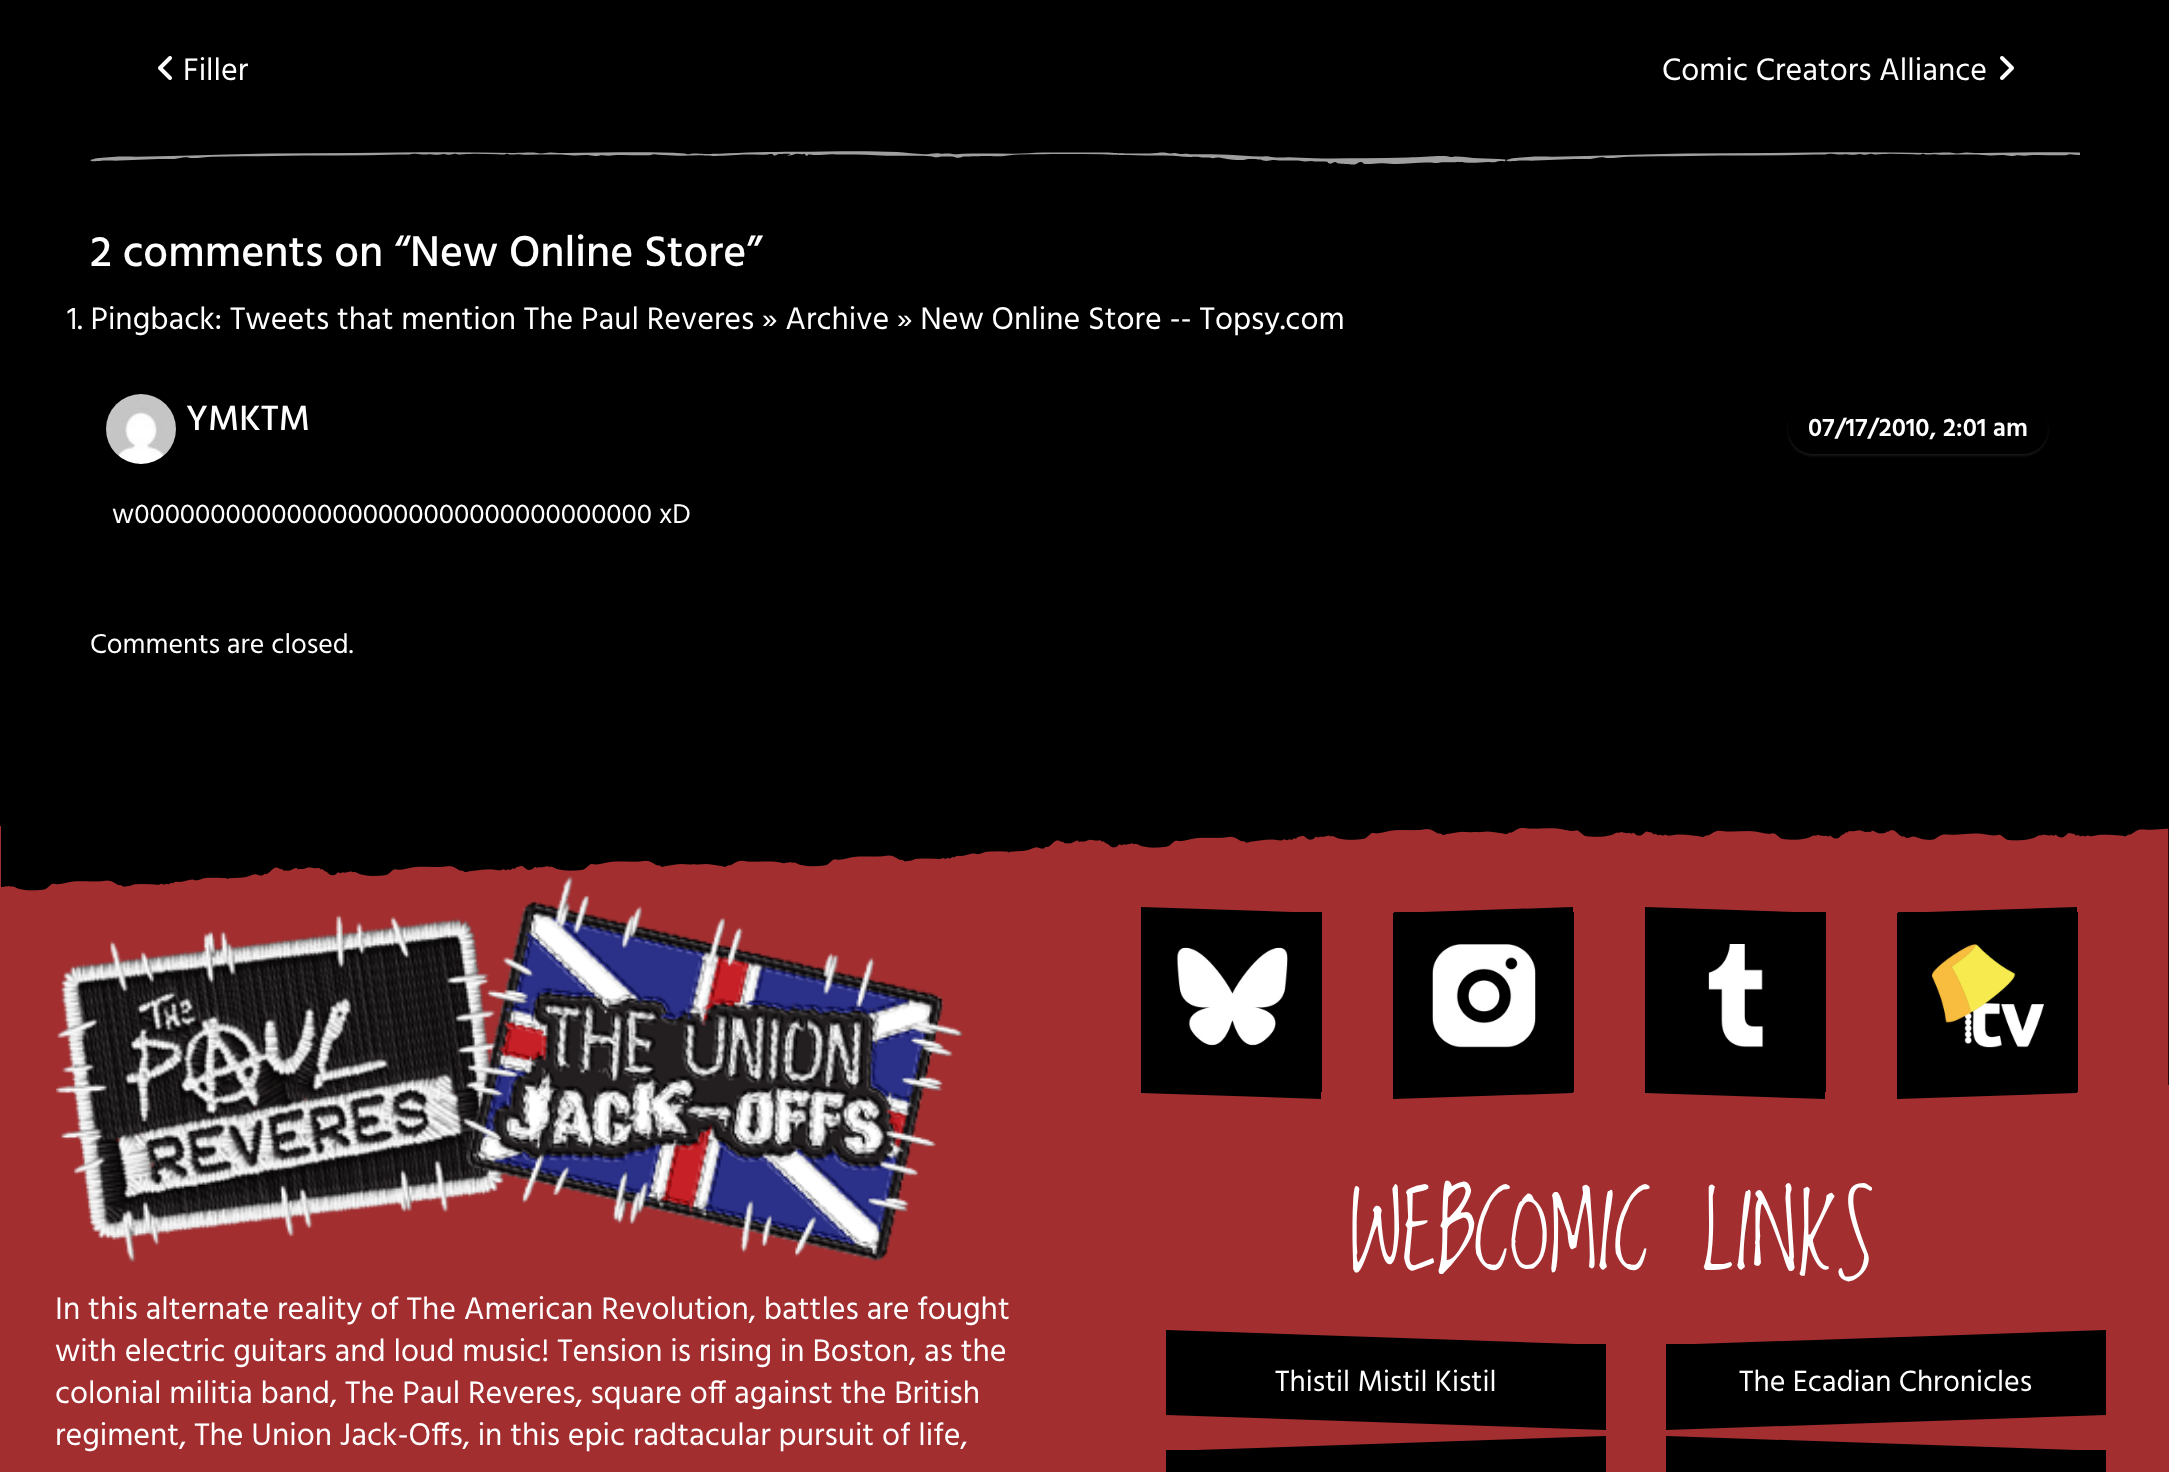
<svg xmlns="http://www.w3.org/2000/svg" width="2169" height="1472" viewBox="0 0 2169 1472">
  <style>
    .t1 { font: 32px Hind; fill: #fff; }
    .t2 { font: 500 44px Hind; fill: #fff; }
    .t3 { font: 500 36px Hind; fill: #fff; }
    .t4 { font: 600 26px Hind; fill: #fff; }
    .t5 { font: 28px Hind; fill: #fff; }
    .t6 { font: 100px Loved by the King; fill: #fff; }
    .t7 { font: 30px Hind; fill: #fff; }
  </style>
  <rect width="100%" height="100%" fill="#000"/>
  <image x="158" y="56" width="14" height="24" href="images/1.png"/>
  <text x="183" y="80" class="t1">Filler</text>
  <text x="1662" y="80" class="t1">Comic Creators Alliance</text>
  <image x="2000" y="56" width="14" height="24" href="images/2.png"/>
  <image x="90" y="151" width="1990" height="14" href="images/3.png"/>
  <text x="90" y="266" class="t2">2 comments on “New Online Store”</text>
  <text x="67" y="329" class="t1">1. Pingback: Tweets that mention The Paul Reveres » Archive » New Online Store -- Topsy.com</text>
  <image x="106" y="394" width="70" height="70" href="images/4.png"/>
  <text x="186" y="430" class="t3">YMKTM</text>
  <rect x="1788" y="406" width="260" height="50" rx="25" fill="#8080802e" filter="blur(1px)"/>
  <rect x="1788" y="404" width="260" height="50" rx="25" fill="#000"/>
  <text x="1808" y="436" class="t4">07/17/2010, 2:01 am</text>
  <text x="112" y="523" class="t5">w0000000000000000000000000000000000 xD</text>
  <text x="90" y="653" class="t5">Comments are closed.</text>
  <rect x="0" y="826" width="2169" height="646" fill="#a22e30"/>
  <image x="1" y="826" width="2168" height="259" href="images/5.png"/>
  <image x="56" y="876" width="907" height="386" href="images/6.png"/>
  <text x="55" y="1319" class="t1">In this alternate reality of The American Revolution, battles are fought</text>
  <text x="55" y="1361" class="t1">with electric guitars and loud music! Tension is rising in Boston, as the</text>
  <text x="55" y="1403" class="t1">colonial militia band, The Paul Reveres, square off against the British</text>
  <text x="55" y="1445" class="t1">regiment, The Union Jack-Offs, in this epic radtacular pursuit of life,</text>
  <rect x="1292" y="912" width="30" height="180" fill="#000"/>
  <path d="M1141 907L1321 913V1093L1141 1087Z" fill="#000"/>
  <path d="M1141 913L1321 919V1099L1141 1093Z" fill="#000"/>
  <image x="1176" y="947" width="112" height="99" href="images/7.png"/>
  <rect x="1394" y="912" width="180" height="180" fill="#000"/>
  <path d="M1393 913L1573 907V1087L1393 1093Z" fill="#000"/>
  <path d="M1393 919L1573 913V1093L1393 1099Z" fill="#000"/>
  <image x="1432" y="944" width="104" height="104" href="images/8.png"/>
  <rect x="1796" y="912" width="30" height="180" fill="#000"/>
  <path d="M1645 907L1825 913V1093L1645 1087Z" fill="#000"/>
  <path d="M1645 913L1825 919V1099L1645 1093Z" fill="#000"/>
  <image x="1708" y="944" width="56" height="104" href="images/9.png"/>
  <rect x="1898" y="912" width="180" height="180" fill="#000"/>
  <path d="M1897 913L2077 907V1087L1897 1093Z" fill="#000"/>
  <path d="M1897 919L2077 913V1093L1897 1099Z" fill="#000"/>
  <image x="1932" y="943" width="112" height="105" href="images/10.png"/>
  <text x="1349" y="1269" class="t6">WEBCOMIC LINKS</text>
  <rect x="1578" y="1344" width="28" height="1" fill="#000"/>
  <path d="M1166 1330L1606 1345V1415L1166 1400Z" fill="#000"/>
  <path d="M1166 1345L1606 1360V1430L1166 1415Z" fill="#000"/>
  <text x="1275" y="1391" class="t7">Thistil Mistil Kistil</text>
  <rect x="1166" y="1450" width="30" height="1" fill="#000"/>
  <path d="M1166 1451L1606 1436V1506L1166 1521Z" fill="#000"/>
  <rect x="1666" y="1344" width="30" height="1" fill="#000"/>
  <path d="M1666 1345L2106 1330V1400L1666 1415Z" fill="#000"/>
  <path d="M1666 1360L2106 1345V1415L1666 1430Z" fill="#000"/>
  <text x="1739" y="1391" class="t7">The Ecadian Chronicles</text>
  <rect x="2078" y="1450" width="28" height="1" fill="#000"/>
  <path d="M1666 1436L2106 1451V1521L1666 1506Z" fill="#000"/>
</svg>
